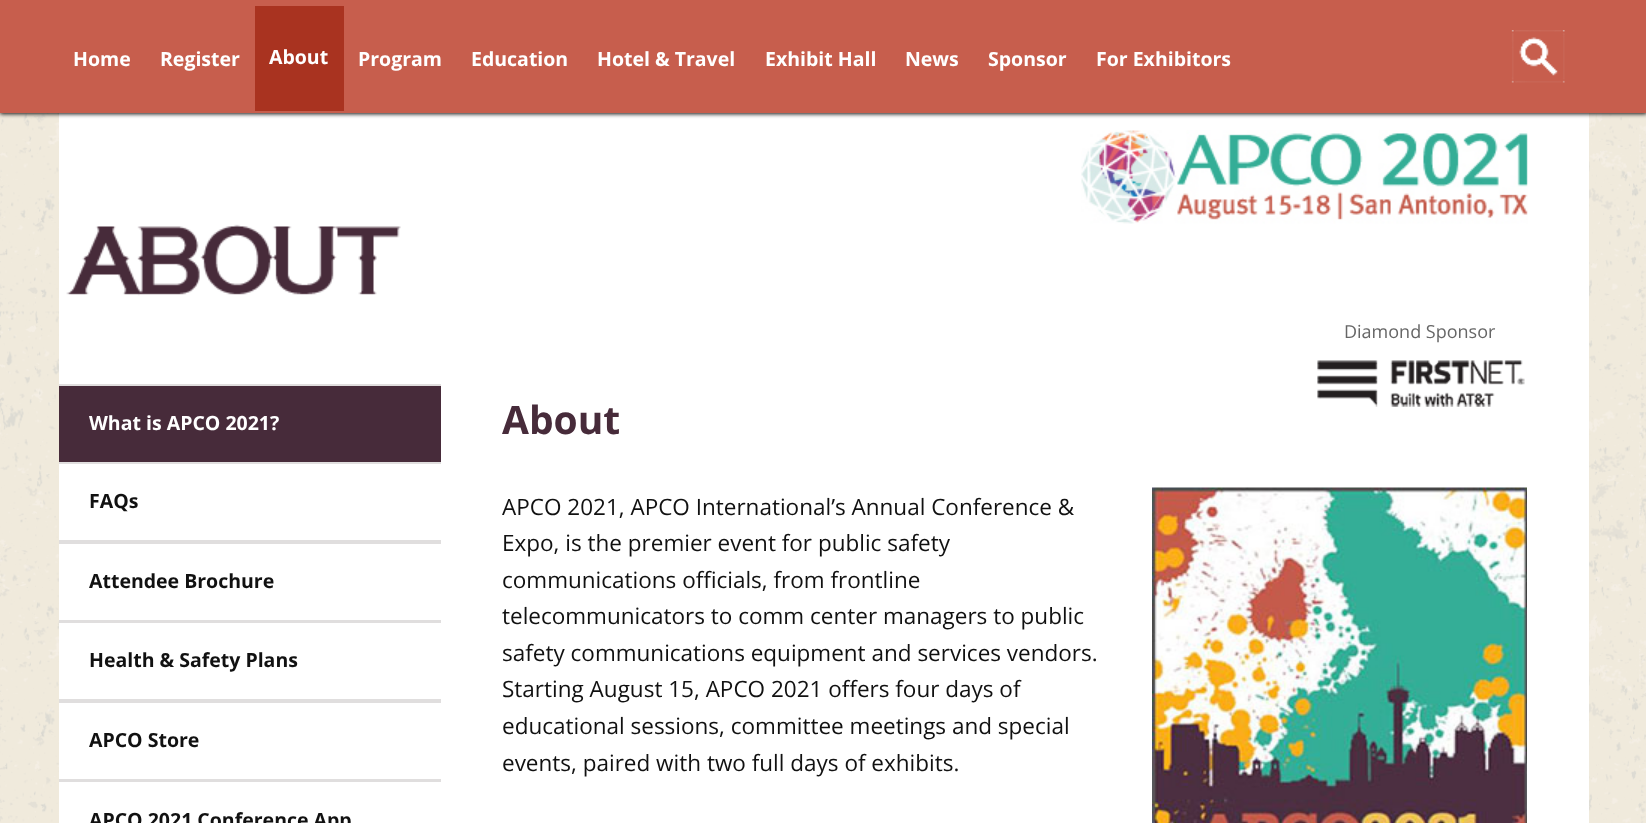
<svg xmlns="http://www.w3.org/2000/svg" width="1646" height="823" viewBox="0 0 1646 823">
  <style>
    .t1 { font: bold 19.5px Open Sans; fill: #fff; }
    .t2 { font: bold 19.5px Open Sans; fill: #111; }
    .t3 { font: 18px Open Sans; fill: #666; }
    .t4 { font: bold 39px Open Sans; fill: #472b3a; }
    .t5 { font: 22.5px Open Sans; fill: #111; }
  </style>
  <rect width="100%" height="100%" fill="#fff"/>
  <image x="0" y="113" width="1646" height="710" href="images/1.png"/>
  <rect x="59" y="113" width="1530" height="710" fill="#fff"/>
  <rect x="0" y="2" width="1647" height="112" fill="#111" filter="blur(2px)"/>
  <rect x="0" y="0" width="1646" height="113" fill="#c75e4d"/>
  <text x="73" y="66" class="t1">Home</text>
  <text x="160" y="66" class="t1">Register</text>
  <rect x="255" y="6" width="89" height="105" fill="#a93320"/>
  <text x="269" y="64" class="t1">About</text>
  <text x="358" y="66" class="t1">Program</text>
  <text x="471" y="66" class="t1">Education</text>
  <text x="597" y="66" class="t1">Hotel &amp; Travel</text>
  <text x="765" y="66" class="t1">Exhibit Hall</text>
  <text x="905" y="66" class="t1">News</text>
  <text x="988" y="66" class="t1">Sponsor</text>
  <text x="1096" y="66" class="t1">For Exhibitors</text>
  <image x="1511" y="30" width="54" height="53" href="images/2.png"/>
  <image x="66" y="224" width="335" height="72" href="images/3.png"/>
  <image x="1081" y="130" width="447" height="94" href="images/4.png"/>
  <rect x="59" y="386" width="382" height="76" fill="#472b3a"/>
  <rect x="59" y="384" width="382" height="2" fill="#e0dede"/>
  <text x="89" y="430" class="t1">What is APCO 2021?</text>
  <rect x="59" y="462" width="382" height="2" fill="#e0dede"/>
  <rect x="59" y="540" width="382" height="4" fill="#e0dede"/>
  <text x="89" y="508" class="t2">FAQs</text>
  <rect x="59" y="620" width="382" height="3" fill="#e0dede"/>
  <text x="89" y="588" class="t2">Attendee Brochure</text>
  <rect x="59" y="699" width="382" height="4" fill="#e0dede"/>
  <text x="89" y="667" class="t2">Health &amp; Safety Plans</text>
  <rect x="59" y="779" width="382" height="3" fill="#e0dede"/>
  <text x="89" y="747" class="t2">APCO Store</text>
  <text x="89" y="827" class="t2">APCO 2021 Conference App</text>
  <text x="1344" y="338" class="t3">Diamond Sponsor</text>
  <image x="1317" y="360" width="208" height="47" href="images/5.png"/>
  <text x="502" y="434" class="t4">About</text>
  <text x="502" y="515" class="t5">APCO 2021, APCO International’s Annual Conference &amp;</text>
  <text x="502" y="551" class="t5">Expo, is the premier event for public safety</text>
  <text x="502" y="588" class="t5">communications officials, from frontline</text>
  <text x="502" y="624" class="t5">telecommunicators to comm center managers to public</text>
  <text x="502" y="661" class="t5">safety communications equipment and services vendors.</text>
  <text x="502" y="697" class="t5">Starting August 15, APCO 2021 offers four days of</text>
  <text x="502" y="734" class="t5">educational sessions, committee meetings and special</text>
  <text x="502" y="771" class="t5">events, paired with two full days of exhibits.</text>
  <image x="1152" y="487" width="375" height="336" href="images/6.png"/>
</svg>
